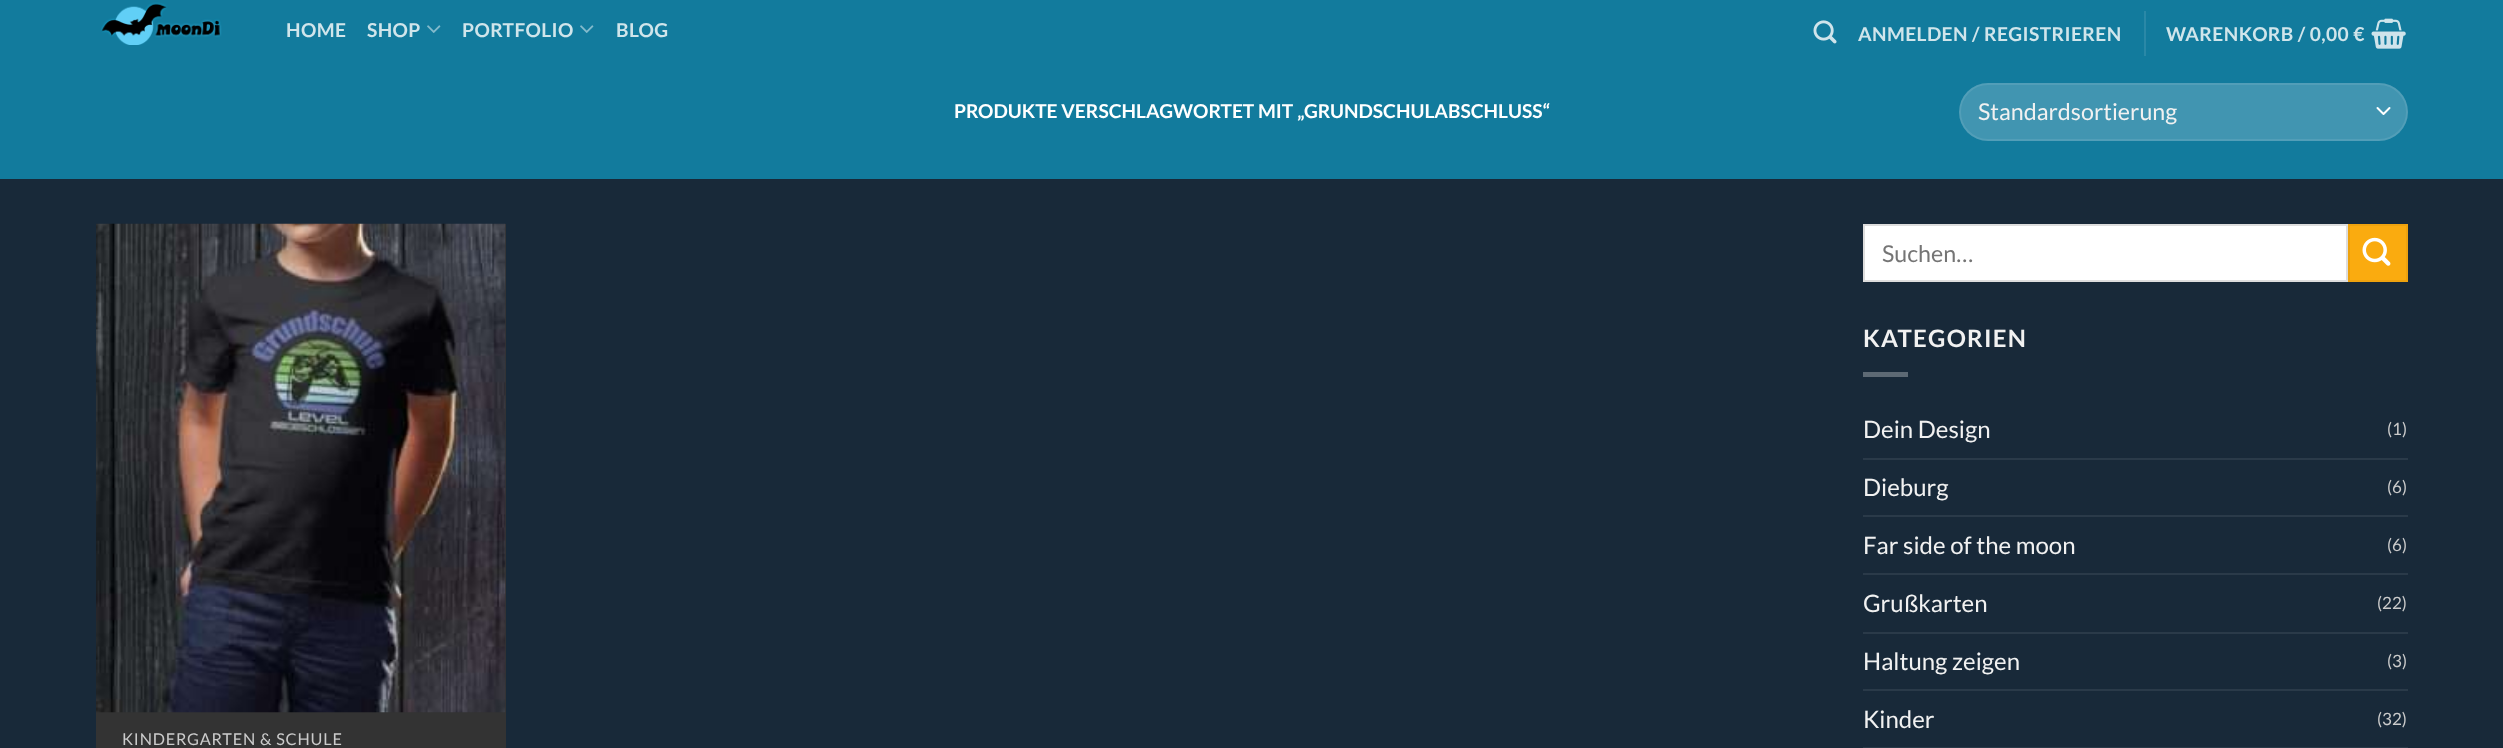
<svg xmlns="http://www.w3.org/2000/svg" width="2503" height="748" viewBox="0 0 2503 748">
  <style>
    .t1 { font: bold 19.2px Lato; letter-spacing: 0.4px; fill: #d0e5eb; }
    .t2 { font: bold 19.2px Lato; fill: #fff; }
    .t3 { font: 23.25px Lato; fill: #f1f1f1; }
    .t4 { font: 23.25px Lato; fill: #757575; }
    .t5 { font: bold 24px Lato; letter-spacing: 1.25px; fill: #f1f1f1; }
    .t6 { font: 24px Lato; fill: #f1f1f1; }
    .t7 { font: 17px Lato; fill: #cbcbcb; }
    .t8 { font: 16.25px Lato; letter-spacing: 0.8px; fill: #cbcbcb; }
  </style>
  <rect width="100%" height="100%" fill="#182939"/>
  <rect x="0" y="0" width="2503" height="179" fill="#127b9d"/>
  <image x="101" y="2" width="121" height="43" href="images/1.png"/>
  <text x="286" y="37" class="t1">HOME</text>
  <text x="367" y="37" class="t1">SHOP</text>
  <image x="427" y="25" width="14" height="8" href="images/2.png"/>
  <text x="462" y="37" class="t1">PORTFOLIO</text>
  <image x="580" y="25" width="14" height="8" href="images/2.png"/>
  <text x="616" y="37" class="t1">BLOG</text>
  <image x="1813" y="20" width="24" height="24" href="images/3.png"/>
  <text x="1858" y="41" class="t1">ANMELDEN / REGISTRIEREN</text>
  <rect x="2144" y="11" width="2" height="45" fill="#2a88a7"/>
  <text x="2166" y="41" class="t1">WARENKORB / 0,00 €</text>
  <image x="2371" y="18" width="35" height="31" href="images/4.png"/>
  <text x="954" y="118" class="t2">PRODUKTE VERSCHLAGWORTET MIT „GRUNDSCHULABSCHLUSS“</text>
  <rect x="1959" y="83" width="449" height="58" rx="29" fill="#4195b1"/>
  <path d="M2377.5 108L2383.5 114L2389.5 108" fill="none" stroke="#fff" stroke-width="2" stroke-linecap="round" stroke-linejoin="round"/>
  <rect x="1960" y="84" width="447" height="56" rx="28" fill="none" stroke="#ffffff17" stroke-width="2"/>
  <text x="1978" y="120" class="t3">Standardsortierung</text>
  <rect x="1864" y="225" width="483" height="56" fill="#fff" stroke="#ddd" stroke-width="2"/>
  <text x="1882" y="262" class="t4">Suchen…</text>
  <rect x="2349" y="225" width="58" height="56" fill="#faab0f" stroke="#eea20e" stroke-width="2"/>
  <image x="2362" y="237" width="29" height="29" href="images/5.png"/>
  <text x="1863" y="347" class="t5">KATEGORIEN</text>
  <rect x="1863" y="372" width="45" height="5" fill="#5d6974"/>
  <text x="1863" y="438" class="t6">Dein Design</text>
  <text x="2387" y="435" class="t7">(1)</text>
  <rect x="1863" y="458" width="545" height="2" fill="#2a3a49"/>
  <text x="1863" y="496" class="t6">Dieburg</text>
  <text x="2387" y="493" class="t7">(6)</text>
  <rect x="1863" y="515" width="545" height="2" fill="#2a3a49"/>
  <text x="1863" y="554" class="t6">Far side of the moon</text>
  <text x="2387" y="551" class="t7">(6)</text>
  <rect x="1863" y="573" width="545" height="2" fill="#2a3a49"/>
  <text x="1863" y="612" class="t6">Grußkarten</text>
  <text x="2377" y="609" class="t7">(22)</text>
  <rect x="1863" y="632" width="545" height="2" fill="#2a3a49"/>
  <text x="1863" y="670" class="t6">Haltung zeigen</text>
  <text x="2387" y="667" class="t7">(3)</text>
  <rect x="1863" y="689" width="545" height="2" fill="#2a3a49"/>
  <text x="1863" y="728" class="t6">Kinder</text>
  <text x="2377" y="725" class="t7">(32)</text>
  <rect x="1863" y="747" width="545" height="1" fill="#2a3a49"/>
  <rect x="96" y="224" width="410" height="524" fill="#333"/>
  <image x="96" y="223" width="410" height="490" href="images/6.png"/>
  <text x="122" y="745" class="t8">KINDERGARTEN &amp; SCHULE</text>
</svg>
